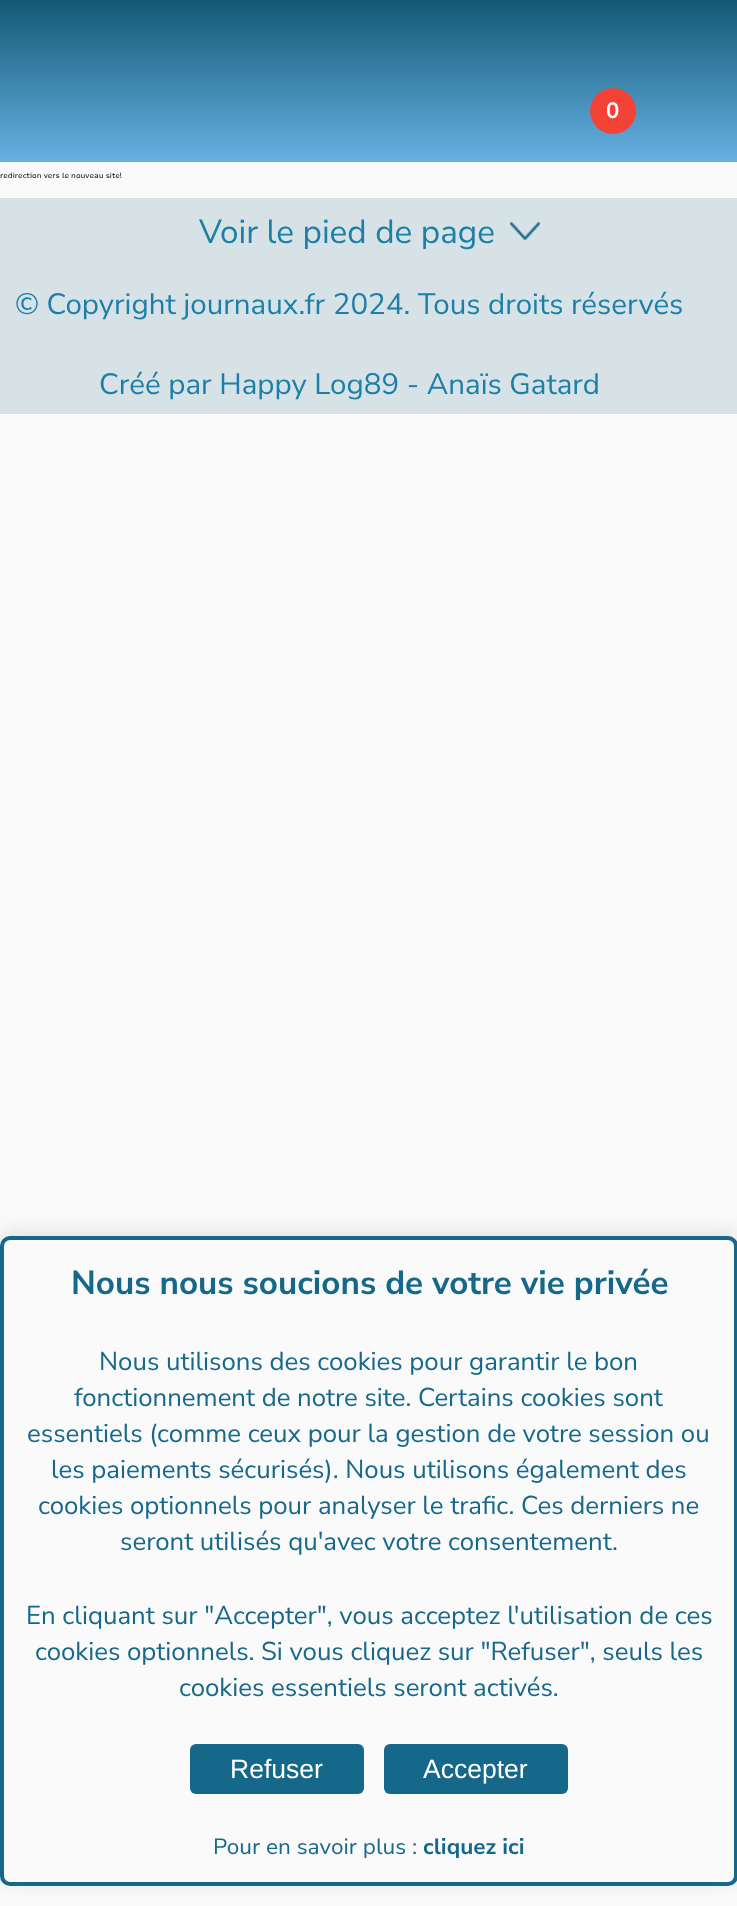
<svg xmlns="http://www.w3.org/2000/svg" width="737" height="1906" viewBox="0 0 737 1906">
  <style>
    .t1 { font: bold 22.1px Nunito Sans; fill: #fff; }
    .t2 { font: 7.4px Nunito Sans; fill: #000; }
    .t3 { font: 33.25px 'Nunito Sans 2'; fill: #1b7fa8; }
    .t4 { font: 29.5px 'Nunito Sans 2'; fill: #1b7fa8; }
    .t5 { font: bold 33.25px Nunito Sans; fill: #16688a; }
    .t6 { font: 25.8px 'Nunito Sans 2'; fill: #16688a; }
    .t7 { font: 26.5px Liberation Sans; fill: #fff; }
    .t8 { font: 22.1px 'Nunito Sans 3'; fill: #16688a; }
    .t9 { font: bold 22.1px 'Nunito Sans 2'; fill: #16688a; }
  </style>
  <defs>
    <linearGradient id="g1" gradientUnits="userSpaceOnUse" x1="369" y1="0" x2="369" y2="162"><stop offset="0" stop-color="#135975"/><stop offset="1" stop-color="#66b1e3"/></linearGradient>
  </defs>
  <rect width="100%" height="100%" fill="#fafafa"/>
  <rect x="0" y="0" width="737" height="162" fill="url(#g1)"/>
  <circle cx="613" cy="111" r="23" fill="#f44336"/>
  <text x="606" y="118" class="t1">0</text>
  <text x="0" y="178" class="t2">redirection vers le nouveau site!</text>
  <rect x="0" y="198" width="737" height="216" fill="#d6e2e6"/>
  <text x="199" y="243" class="t3">Voir le pied de page</text>
  <image x="510" y="222" width="30" height="18" href="images/1.png"/>
  <text x="15" y="314" class="t4">© Copyright journaux.fr 2024. Tous droits réservés</text>
  <text x="99" y="394" class="t4">Créé par Happy Log89 - Anaïs Gatard</text>
  <rect x="0" y="1232" width="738" height="650" rx="10" fill="#0000001a" filter="blur(10px)"/>
  <rect x="2" y="1238" width="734" height="646" rx="8" fill="#fafafa" stroke="#16688a" stroke-width="4"/>
  <text x="71" y="1294" class="t5">Nous nous soucions de votre vie privée</text>
  <text x="99" y="1370" class="t6">Nous utilisons des cookies pour garantir le bon</text>
  <text x="74" y="1406" class="t6">fonctionnement de notre site. Certains cookies sont</text>
  <text x="27" y="1442" class="t6">essentiels (comme ceux pour la gestion de votre session ou</text>
  <text x="51" y="1478" class="t6">les paiements sécurisés). Nous utilisons également des</text>
  <text x="38" y="1514" class="t6">cookies optionnels pour analyser le trafic. Ces derniers ne</text>
  <text x="120" y="1550" class="t6">seront utilisés qu'avec votre consentement.</text>
  <text x="26" y="1624" class="t6">En cliquant sur "Accepter", vous acceptez l'utilisation de ces</text>
  <text x="35" y="1660" class="t6">cookies optionnels. Si vous cliquez sur "Refuser", seuls les</text>
  <text x="179" y="1696" class="t6">cookies essentiels seront activés.</text>
  <rect x="190" y="1744" width="174" height="50" rx="6" fill="#16688a"/>
  <text x="230" y="1778" class="t7">Refuser</text>
  <rect x="384" y="1744" width="184" height="50" rx="6" fill="#16688a"/>
  <text x="423" y="1778" class="t7">Accepter</text>
  <text x="213" y="1854" class="t8">Pour en savoir plus :</text>
  <text x="423" y="1854" class="t9">cliquez ici</text>
</svg>
